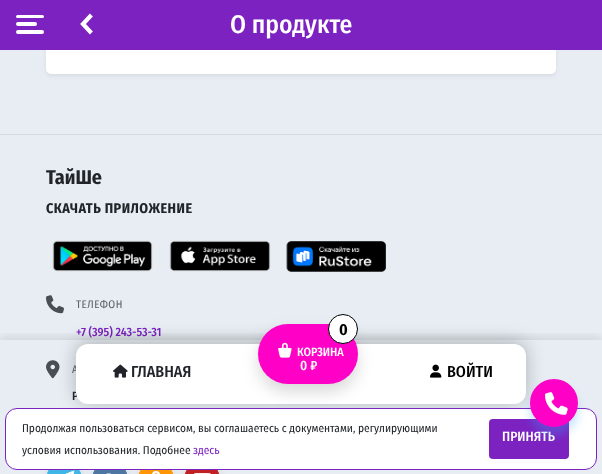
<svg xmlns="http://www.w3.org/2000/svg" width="602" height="474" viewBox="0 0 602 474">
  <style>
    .t1 { font: 500 25.5px Fira Sans Condensed; fill: #fff; }
    .t2 { font: bold 20px Fira Sans Condensed; fill: #212529; }
    .t3 { font: bold 14px Fira Sans Condensed; letter-spacing: 0.5px; fill: #212529; }
    .t4 { font: 11px Fira Sans Condensed; letter-spacing: 0.5px; fill: #5c6166; }
    .t5 { font: 500 12px Fira Sans Condensed; fill: #7c22c0; }
    .t6 { font: 500 12px Fira Sans Condensed; fill: #212529; }
    .t7 { font: 500 16px Fira Sans Condensed; fill: #212529; }
    .t8 { font: bold 16px Fira Sans Condensed; fill: #000; }
    .t9 { font: 500 12px Fira Sans Condensed; fill: #fff; }
    .t10 { font: 500 13.5px Fira Sans Condensed; fill: #fff; }
    .t11 { font: 500 16px Fira Sans Condensed; fill: #000; }
    .t12 { font: 11.4px Fira Sans Condensed; fill: #212529; }
    .t13 { font: 11.4px Fira Sans Condensed; fill: #7c22c0; }
  </style>
  <defs>
    <clipPath id="clip1"><rect x="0" y="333" width="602" height="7"/></clipPath>
  </defs>
  <rect width="100%" height="100%" fill="#e7edf3"/>
  <rect x="46" y="-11" width="510" height="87" rx="5" fill="#00000012" filter="blur(2px)"/>
  <rect x="46" y="-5" width="510" height="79" rx="5" fill="#fff"/>
  <rect x="0" y="0" width="602" height="50" fill="#7c22c0"/>
  <rect x="16" y="15" width="28" height="3" rx="1.5" fill="#fff"/>
  <path d="M90 31.5L83 24M83 24L90 16.5" fill="none" stroke="#fff" stroke-width="4.1" stroke-linecap="square"/>
  <rect x="16" y="22" width="21" height="4" rx="2" fill="#fff"/>
  <rect x="16" y="30" width="28" height="4" rx="2" fill="#fff"/>
  <text x="230" y="33" class="t1">О продукте</text>
  <rect x="0" y="134" width="602" height="1" fill="#d5dae0"/>
  <text x="46" y="184" class="t2">ТайШе</text>
  <text x="46" y="213" class="t3">СКАЧАТЬ ПРИЛОЖЕНИЕ</text>
  <image x="52" y="240" width="101" height="32" href="images/1.png"/>
  <image x="169" y="240" width="102" height="32" href="images/2.png"/>
  <image x="286" y="241" width="100" height="31" href="images/3.png"/>
  <image x="46" y="295" width="18" height="19" href="images/4.png"/>
  <text x="76" y="308" class="t4">ТЕЛЕФОН</text>
  <text x="76" y="336" class="t5">+7 (395) 243-53-31</text>
  <image x="46" y="360" width="14" height="19" href="images/5.png"/>
  <text x="72" y="373" class="t4">А</text>
  <text x="72" y="400" class="t6">Р</text>
  <rect x="46" y="463" width="36" height="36" rx="18" fill="#0000001a" filter="blur(4px)"/>
  <image x="47" y="470" width="34" height="4" href="images/6.png"/>
  <rect x="92" y="463" width="36" height="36" rx="18" fill="#0000001a" filter="blur(4px)"/>
  <image x="93" y="470" width="34" height="4" href="images/7.png"/>
  <rect x="138" y="463" width="36" height="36" rx="18" fill="#0000001a" filter="blur(4px)"/>
  <image x="139" y="470" width="34" height="4" href="images/8.png"/>
  <rect x="184" y="463" width="36" height="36" rx="18" fill="#0000001a" filter="blur(4px)"/>
  <image x="185" y="470" width="34" height="4" href="images/9.png"/>
  <g clip-path="url(#clip1)">
    <rect x="0" y="337" width="602" height="134" fill="#0000001a" filter="blur(5px)"/>
  </g>
  <rect x="76" y="342" width="450" height="60" rx="12" fill="#00000040" filter="blur(9px)"/>
  <rect x="76" y="344" width="450" height="60" rx="12" fill="#fff"/>
  <image x="113" y="364" width="15" height="14" href="images/10.png"/>
  <text x="131" y="377" class="t7">ГЛАВНАЯ</text>
  <rect x="5.5" y="408.5" width="591" height="61" rx="11.5" fill="#fff" stroke="#7c22c0"/>
  <rect x="258" y="332" width="100" height="60" rx="30" fill="#00000026" filter="blur(8px)"/>
  <rect x="258" y="324" width="100" height="60" rx="30" fill="#ff00c6"/>
  <circle cx="343" cy="329" r="14.5" fill="#fff" stroke="#000"/>
  <text x="339" y="335" class="t8">0</text>
  <image x="278" y="342" width="14" height="16" href="images/11.png"/>
  <text x="297" y="356" class="t9">КОРЗИНА</text>
  <text x="300" y="370" class="t10">0 ₽</text>
  <image x="430" y="364" width="12" height="14" href="images/12.png"/>
  <text x="447" y="377" class="t11">ВОЙТИ</text>
  <text x="22" y="432" class="t12">Продолжая пользоваться сервисом, вы соглашаетесь с документами, регулирующими</text>
  <text x="22" y="454" class="t12">условия использования. Подобнее</text>
  <text x="193" y="454" class="t13">здесь</text>
  <rect x="489" y="419" width="80" height="40" rx="4" fill="#7c22c0"/>
  <text x="502" y="441" class="t10">ПРИНЯТЬ</text>
  <rect x="530" y="387" width="48" height="48" rx="24" fill="#38a3fd4d" filter="blur(5px)"/>
  <circle cx="554" cy="403" r="23" fill="#ff00c6" stroke="#ff00c6" stroke-width="2"/>
  <image x="545" y="392" width="23" height="23" href="images/13.png"/>
</svg>
